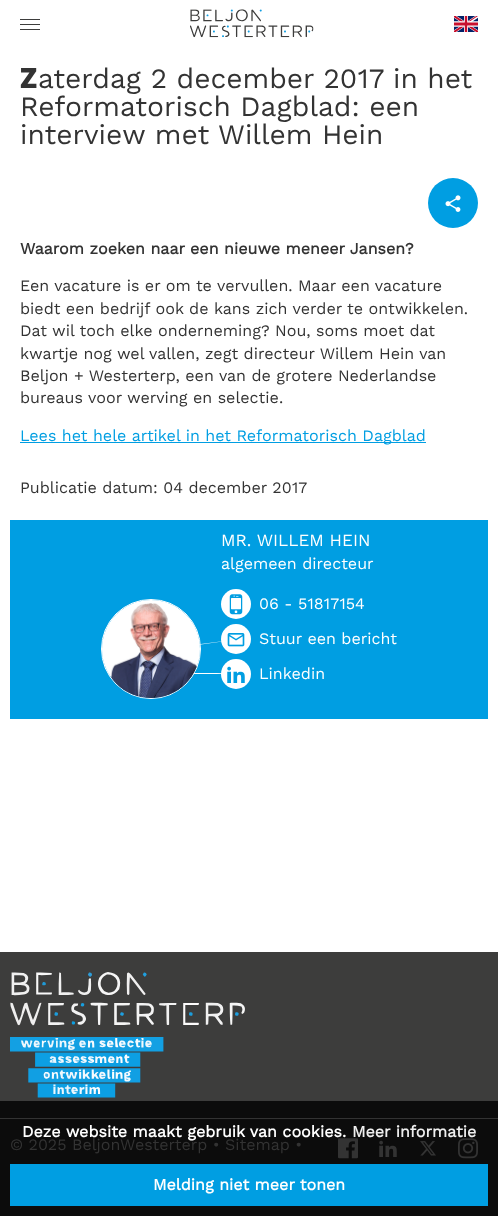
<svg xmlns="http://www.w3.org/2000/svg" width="498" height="1216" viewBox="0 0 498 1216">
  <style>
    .t1 { font: 900 28px Noto Sans; fill: #333; }
    .t2 { font: 28px Work Sans; fill: #333; }
    .t3 { font: bold 16px Work Sans; fill: #333; }
    .t4 { font: 16px Work Sans; fill: #333; }
    .t5 { font: 16px Work Sans; fill: #009ee2; }
    .t6 { font: 17px Work Sans; fill: #fff; }
    .t7 { font: 16px Work Sans; fill: #fff; }
    .t8 { font: bold 16px Work Sans; fill: #fff; }
    .t9 { font: bold 16px Work Sans; fill: #efefef; }
  </style>
  <rect width="100%" height="100%" fill="#fff"/>
  <rect x="20" y="19" width="20" height="1" fill="#3d3d3c"/>
  <rect x="20" y="24" width="20" height="1" fill="#3d3d3c"/>
  <rect x="20" y="29" width="20" height="1" fill="#3d3d3c"/>
  <image x="190" y="9" width="124" height="29" href="images/1.png"/>
  <image x="454" y="16" width="24" height="16" href="images/2.png"/>
  <text x="20" y="88" class="t1">Z</text>
  <text x="38" y="88" class="t2">aterdag 2 december 2017 in het</text>
  <text x="20" y="116" class="t2">Reformatorisch Dagblad: een</text>
  <text x="20" y="144" class="t2">interview met Willem Hein</text>
  <circle cx="453" cy="203" r="25" fill="#009ee2"/>
  <image x="445" y="195" width="16" height="17" href="images/3.png"/>
  <text x="20" y="254" class="t3">Waarom zoeken naar een nieuwe meneer Jansen?</text>
  <text x="20" y="291" class="t4">Een vacature is er om te vervullen. Maar een vacature</text>
  <text x="20" y="314" class="t4">biedt een bedrijf ook de kans zich verder te ontwikkelen.</text>
  <text x="20" y="336" class="t4">Dat wil toch elke onderneming? Nou, soms moet dat</text>
  <text x="20" y="359" class="t4">kwartje nog wel vallen, zegt directeur Willem Hein van</text>
  <text x="20" y="381" class="t4">Beljon + Westerterp, een van de grotere Nederlandse</text>
  <text x="20" y="403" class="t4">bureaus voor werving en selectie.</text>
  <rect x="20" y="442" width="406" height="1" fill="#009ee2"/>
  <text x="20" y="441" class="t5">Lees het hele artikel in het Reformatorisch Dagblad</text>
  <text x="20" y="493" class="t4">Publicatie datum: 04 december 2017</text>
  <rect x="10" y="520" width="478" height="199" fill="#009ee2"/>
  <path d="M201 644L240 639L162 650Z" fill="#fff"/>
  <ellipse cx="201" cy="673.5" rx="40" ry="0.5" fill="#fff"/>
  <circle cx="151" cy="649" r="49.5" fill="none" stroke="#fff"/>
  <image x="102" y="600" width="98" height="98" href="images/4.png"/>
  <text x="221" y="546" class="t6">MR. WILLEM HEIN</text>
  <text x="221" y="569" class="t7">algemeen directeur</text>
  <circle cx="236" cy="604" r="15" fill="#fff"/>
  <image x="229" y="594" width="14" height="21" href="images/5.png"/>
  <text x="259" y="609" class="t7">06 - 51817154</text>
  <circle cx="236" cy="639" r="15" fill="#fff"/>
  <image x="227" y="633" width="18" height="14" href="images/6.png"/>
  <text x="259" y="644" class="t7">Stuur een bericht</text>
  <circle cx="236" cy="674" r="15" fill="#fff"/>
  <image x="227" y="666" width="18" height="17" href="images/7.png"/>
  <text x="259" y="679" class="t7">Linkedin</text>
  <rect x="0" y="952" width="498" height="149" fill="#3d3d3c"/>
  <rect x="0" y="1101" width="498" height="115" fill="#0c0c0c"/>
  <image x="10" y="972" width="235" height="126" href="images/8.png"/>
  <rect x="0" y="1118" width="498" height="1" fill="#333"/>
  <text x="10" y="1150" class="t4">© 2025 BeljonWesterterp • Sitemap •</text>
  <image x="338" y="1138" width="20" height="21" href="images/9.png"/>
  <image x="379" y="1140" width="18" height="17" href="images/10.png"/>
  <image x="420" y="1141" width="16" height="15" href="images/11.png"/>
  <image x="458" y="1138" width="20" height="21" href="images/12.png"/>
  <text x="22" y="1137" class="t8">Deze website maakt gebruik van cookies.</text>
  <text x="352" y="1137" class="t9">Meer informatie</text>
  <rect x="10" y="1164" width="478" height="42" fill="#009ee2"/>
  <text x="153" y="1190" class="t8">Melding niet meer tonen</text>
</svg>
